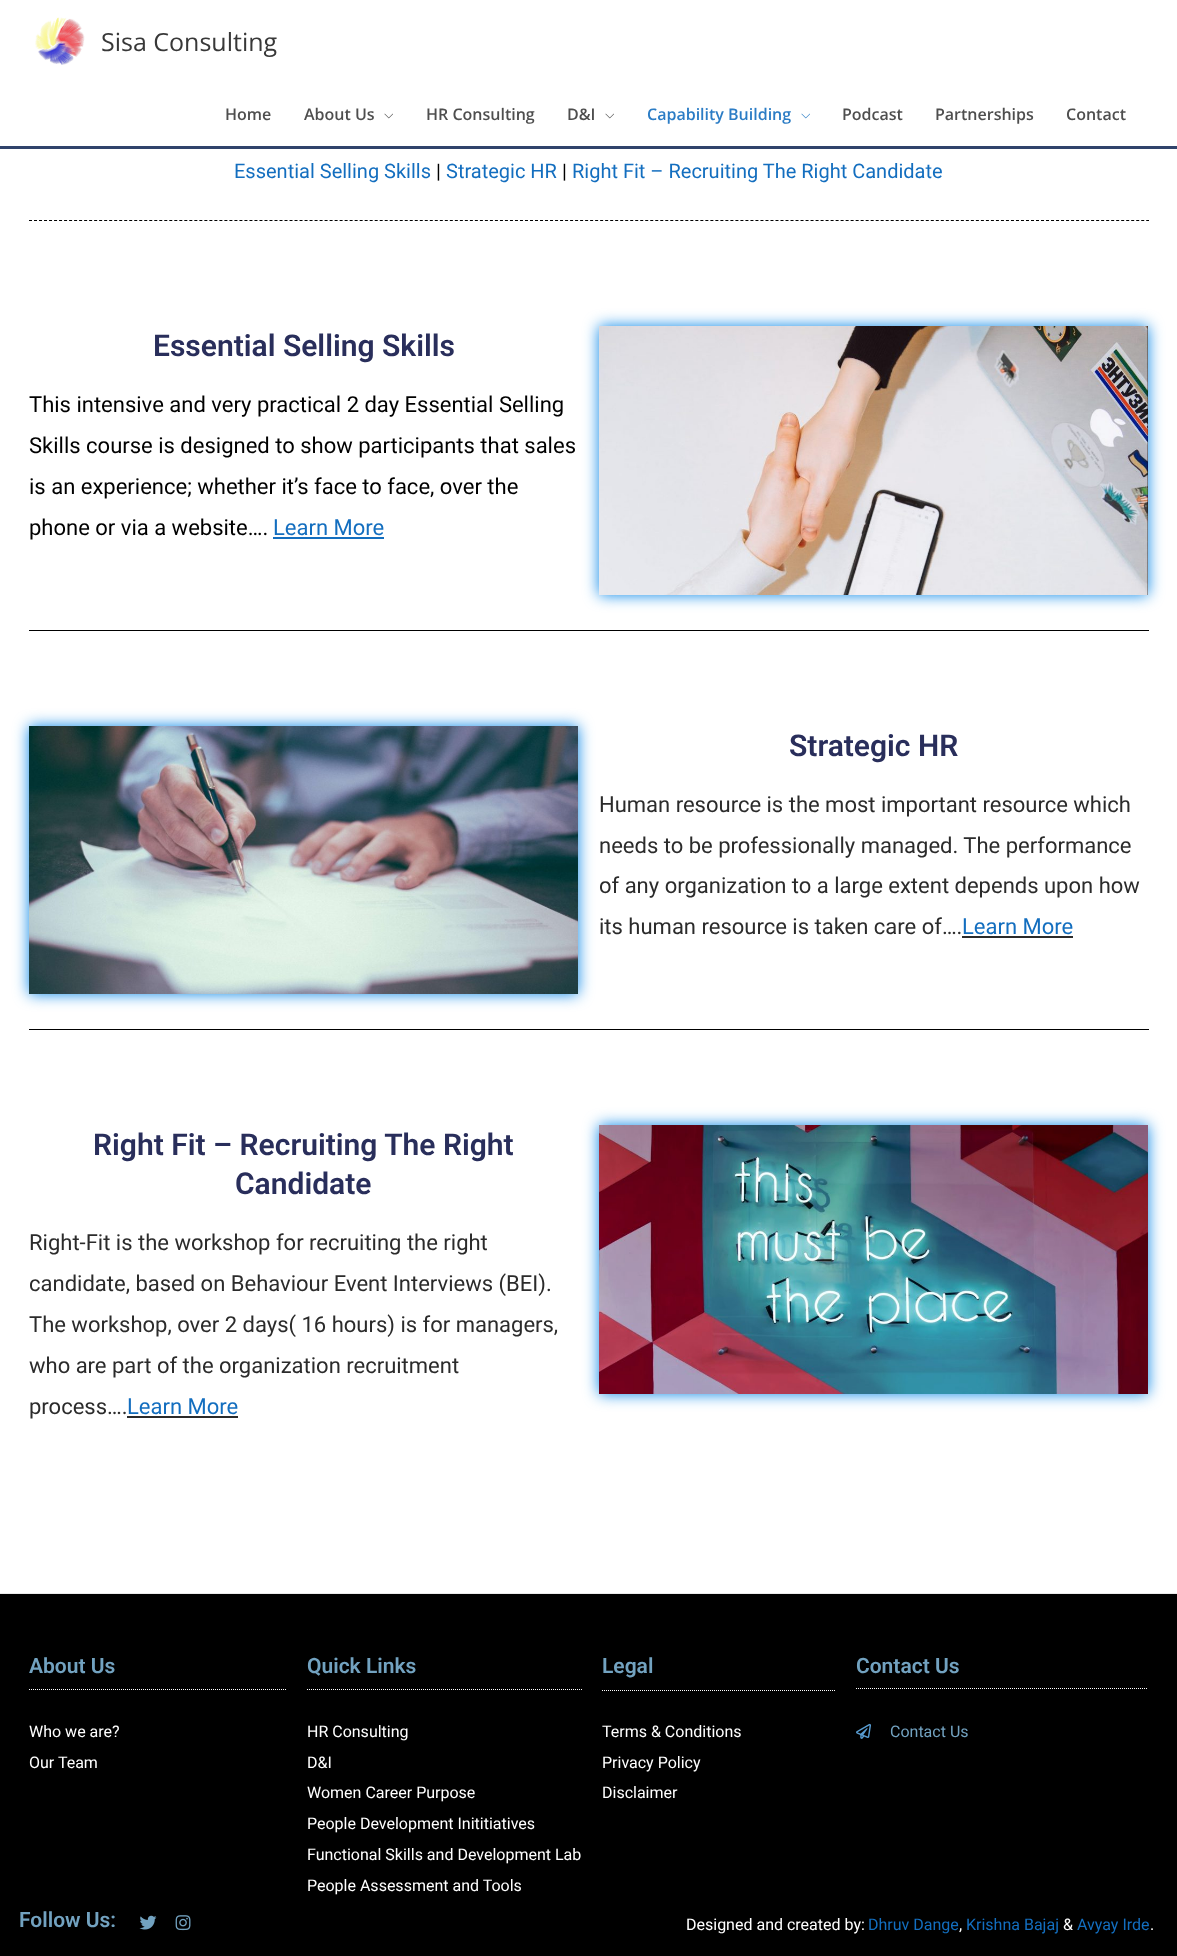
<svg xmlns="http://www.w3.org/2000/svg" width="1177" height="1956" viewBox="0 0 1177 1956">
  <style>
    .t1 { font: 25px Open Sans; fill: #383838; }
    .t2 { font: 600 16px Open Sans; fill: #4e4e4e; }
    .t3 { font: 600 16px Open Sans; fill: #2b7cc5; }
    .t4 { font: 20px Roboto; fill: #136ebf; }
    .t5 { font: 20px Roboto; fill: #000; }
    .t6 { font: 600 30px Roboto; fill: #292e5b; }
    .t7 { font: 22px Roboto; fill: #000; }
    .t8 { font: 22px Roboto; fill: #136ebf; }
    .t9 { font: 22px Roboto; fill: #2b2b2b; }
    .t10 { font: 600 21px Roboto; fill: #72a2c0; }
    .t11 { font: 16px Roboto; fill: #fff; }
    .t12 { font: 16px Roboto; fill: #72a2c0; }
    .t13 { font: 16px Roboto; fill: #136ebf; }
  </style>
  <rect width="100%" height="100%" fill="#fff"/>
  <rect x="0" y="146" width="1177" height="3" fill="#30436b"/>
  <image x="35" y="17" width="50" height="48" href="images/1.png"/>
  <text x="101" y="51" class="t1">Sisa Consulting</text>
  <text x="225" y="120" class="t2">Home</text>
  <text x="304" y="120" class="t2">About Us</text>
  <image x="384" y="113" width="9" height="6" href="images/2.png"/>
  <text x="426" y="120" class="t2">HR Consulting</text>
  <text x="567" y="120" class="t2">D&amp;I</text>
  <image x="605" y="113" width="9" height="6" href="images/2.png"/>
  <text x="647" y="120" class="t3">Capability Building</text>
  <image x="801" y="113" width="9" height="6" href="images/3.png"/>
  <text x="842" y="120" class="t2">Podcast</text>
  <text x="935" y="120" class="t2">Partnerships</text>
  <text x="1066" y="120" class="t2">Contact</text>
  <text x="234" y="178" class="t4">Essential Selling Skills</text>
  <text x="436" y="178" class="t5">|</text>
  <text x="446" y="178" class="t4">Strategic HR</text>
  <text x="562" y="178" class="t5">|</text>
  <text x="572" y="178" class="t4">Right Fit – Recruiting The Right Candidate</text>
  <path d="M29 220.5H1149" fill="none" stroke="#000" stroke-dasharray="3 2.01"/>
  <text x="153" y="356" class="t6">Essential Selling Skills</text>
  <text x="29" y="412" class="t7">This intensive and very practical 2 day Essential Selling</text>
  <text x="29" y="453" class="t7">Skills course is designed to show participants that sales</text>
  <text x="29" y="494" class="t7">is an experience; whether it’s face to face, over the</text>
  <text x="29" y="535" class="t7">phone or via a website….</text>
  <text x="273" y="535" class="t8">Learn More</text>
  <rect x="273" y="537" width="111" height="2" fill="#136ebf"/>
  <rect x="599" y="326" width="549" height="269" fill="#0787e9" filter="blur(7.5px)"/>
  <image x="599" y="326" width="549" height="269" href="images/4.png"/>
  <rect x="29" y="630" width="1120" height="1" fill="#000"/>
  <rect x="29" y="726" width="549" height="268" fill="#0787e9" filter="blur(7.5px)"/>
  <image x="29" y="726" width="549" height="268" href="images/5.png"/>
  <text x="789" y="756" class="t6">Strategic HR</text>
  <text x="599" y="812" class="t9">Human resource is the most important resource which</text>
  <text x="599" y="853" class="t9">needs to be professionally managed. The performance</text>
  <text x="599" y="893" class="t9">of any organization to a large extent depends upon how</text>
  <text x="599" y="934" class="t9">its human resource is taken care of….</text>
  <text x="962" y="934" class="t8">Learn More</text>
  <rect x="962" y="936" width="111" height="2" fill="#2b2b2b"/>
  <rect x="29" y="1029" width="1120" height="1" fill="#000"/>
  <text x="93" y="1155" class="t6">Right Fit – Recruiting The Right</text>
  <text x="235" y="1194" class="t6">Candidate</text>
  <text x="29" y="1250" class="t9">Right-Fit is the workshop for recruiting the right</text>
  <text x="29" y="1291" class="t9">candidate, based on Behaviour Event Interviews (BEI).</text>
  <text x="29" y="1332" class="t9">The workshop, over 2 days( 16 hours) is for managers,</text>
  <text x="29" y="1373" class="t9">who are part of the organization recruitment</text>
  <text x="29" y="1414" class="t9">process….</text>
  <text x="127" y="1414" class="t8">Learn More</text>
  <rect x="127" y="1416" width="111" height="2" fill="#2b2b2b"/>
  <rect x="599" y="1125" width="549" height="269" fill="#0787e9" filter="blur(7.5px)"/>
  <image x="599" y="1125" width="549" height="269" href="images/6.png"/>
  <rect x="0" y="1594" width="1177" height="362" fill="#000"/>
  <rect x="0" y="1593" width="1177" height="1" fill="#eaeaea"/>
  <text x="29" y="1673" class="t10">About Us</text>
  <path d="M29 1689.5H287" fill="none" stroke="#fff" stroke-dasharray="1 1"/>
  <text x="29" y="1737" class="t11">Who we are?</text>
  <text x="29" y="1768" class="t11">Our Team</text>
  <text x="307" y="1673" class="t10">Quick Links</text>
  <path d="M307 1689.5H582" fill="none" stroke="#fff" stroke-dasharray="1 1"/>
  <text x="307" y="1737" class="t11">HR Consulting</text>
  <text x="307" y="1768" class="t11">D&amp;I</text>
  <text x="307" y="1798" class="t11">Women Career Purpose</text>
  <text x="307" y="1829" class="t11">People Development Inititiatives</text>
  <text x="307" y="1860" class="t11">Functional Skills and Development Lab</text>
  <text x="307" y="1891" class="t11">People Assessment and Tools</text>
  <text x="602" y="1673" class="t10">Legal</text>
  <path d="M602 1690.5H836" fill="none" stroke="#fff" stroke-dasharray="1 1"/>
  <text x="602" y="1737" class="t11">Terms &amp; Conditions</text>
  <text x="602" y="1768" class="t11">Privacy Policy</text>
  <text x="602" y="1798" class="t11">Disclaimer</text>
  <text x="856" y="1673" class="t10">Contact Us</text>
  <path d="M856 1688.5H1148" fill="none" stroke="#fff" stroke-dasharray="1 1"/>
  <image x="856" y="1723" width="15" height="16" href="images/7.png"/>
  <text x="890" y="1737" class="t12">Contact Us</text>
  <text x="19" y="1927" class="t10">Follow Us:</text>
  <image x="139" y="1915" width="18" height="15" href="images/8.png"/>
  <image x="175" y="1915" width="16" height="16" href="images/9.png"/>
  <text x="686" y="1930" class="t11">Designed and created by:</text>
  <text x="868" y="1930" class="t13">Dhruv Dange</text>
  <text x="959" y="1930" class="t11">,</text>
  <text x="966" y="1930" class="t13">Krishna Bajaj</text>
  <text x="1063" y="1930" class="t11">&amp;</text>
  <text x="1077" y="1930" class="t13">Avyay Irde</text>
  <text x="1150" y="1930" class="t11">.</text>
</svg>
